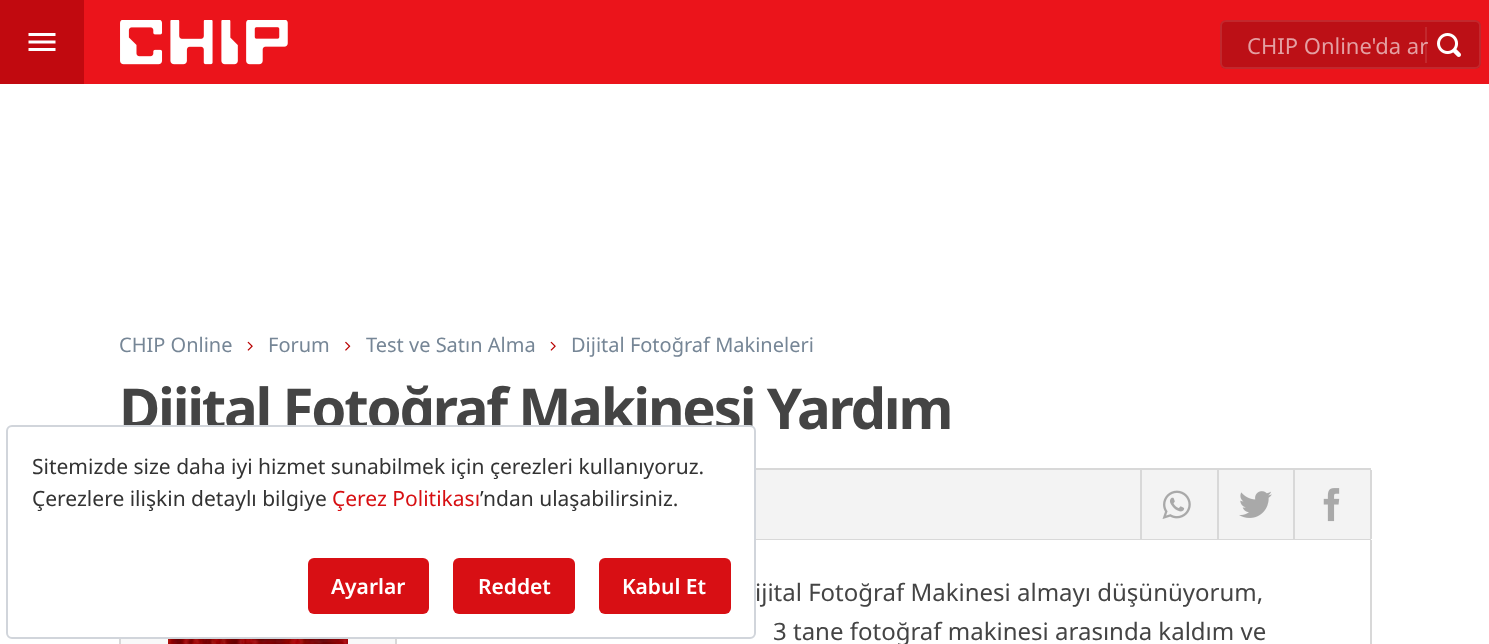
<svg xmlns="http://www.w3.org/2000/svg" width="1489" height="644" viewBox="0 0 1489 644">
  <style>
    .t1 { font: 22px Noto Sans; fill: #e49fa2; }
    .t2 { font: 20px Noto Sans; fill: #768696; }
    .t3 { font: bold 56.4px Noto Sans; letter-spacing: -2.25px; fill: #444; }
    .t4 { font: 24px Noto Sans; fill: #444; }
    .t5 { font: 21px Noto Sans; fill: #333; }
    .t6 { font: 21px Noto Sans; fill: #d70f12; }
    .t7 { font: 600 21px Noto Sans; fill: #fff; }
  </style>
  <rect width="100%" height="100%" fill="#fff"/>
  <rect x="84" y="0" width="1405" height="84" fill="#eb141b"/>
  <rect x="0" y="0" width="84" height="84" fill="#c1090f"/>
  <image x="28" y="33" width="28" height="18" href="images/1.png"/>
  <image x="120" y="20" width="168" height="45" href="images/2.png"/>
  <rect x="1220" y="20" width="261" height="49" rx="6" fill="#bc1016"/>
  <rect x="1221" y="21" width="259" height="47" rx="5" fill="none" stroke="#ffffff1a" stroke-width="2"/>
  <text x="1247" y="54" class="t1">CHIP Online'da ar</text>
  <rect x="1425" y="27" width="2" height="36" fill="#ffffff1a"/>
  <image x="1437" y="33" width="24" height="24" href="images/3.png"/>
  <text x="119" y="352" class="t2">CHIP Online</text>
  <image x="247" y="341" width="6" height="10" href="images/4.png"/>
  <text x="268" y="352" class="t2">Forum</text>
  <image x="345" y="341" width="6" height="10" href="images/5.png"/>
  <text x="366" y="352" class="t2">Test ve Satın Alma</text>
  <image x="550" y="341" width="6" height="10" href="images/4.png"/>
  <text x="571" y="352" class="t2">Dijital Fotoğraf Makineleri</text>
  <text x="119" y="429" class="t3">Dijital Fotoğraf Makinesi Yardım</text>
  <rect x="756" y="470" width="614" height="69" fill="#f3f3f3"/>
  <rect x="756" y="468" width="615" height="2" fill="#d8d8d8"/>
  <rect x="756" y="539" width="615" height="1" fill="#d8d8d8"/>
  <rect x="1370" y="470" width="2" height="69" fill="#d8d8d8"/>
  <rect x="1140" y="470" width="2" height="69" fill="#d8d8d8"/>
  <image x="1162" y="490" width="29" height="29" href="images/6.png"/>
  <rect x="1217" y="470" width="2" height="69" fill="#d8d8d8"/>
  <image x="1239" y="491" width="33" height="27" href="images/7.png"/>
  <rect x="1293" y="470" width="2" height="69" fill="#d8d8d8"/>
  <image x="1323" y="488" width="17" height="34" href="images/8.png"/>
  <rect x="121" y="639" width="274" height="5" fill="#f9f9f9"/>
  <rect x="119" y="639" width="2" height="5" fill="#d8d8d8"/>
  <image x="168" y="639" width="180" height="5" href="images/9.png"/>
  <rect x="1370" y="540" width="2" height="104" fill="#d8d8d8"/>
  <rect x="395" y="639" width="2" height="5" fill="#d8d8d8"/>
  <text x="755" y="601" class="t4">ijital Fotoğraf Makinesi almayı düşünüyorum,</text>
  <text x="773" y="640" class="t4">3 tane fotoğraf makinesi arasında kaldım ve</text>
  <rect x="7" y="426" width="748" height="212" rx="5" fill="#fff" stroke="#d1d5db" stroke-width="2"/>
  <text x="32" y="474" class="t5">Sitemizde size daha iyi hizmet sunabilmek için çerezleri kullanıyoruz.</text>
  <text x="32" y="506" class="t5">Çerezlere ilişkin detaylı bilgiye</text>
  <text x="332" y="506" class="t6">Çerez Politikası</text>
  <text x="480" y="506" class="t5">’ndan ulaşabilirsiniz.</text>
  <rect x="308" y="558" width="121" height="56" rx="6" fill="#d80f14"/>
  <text x="331" y="594" class="t7">Ayarlar</text>
  <rect x="453" y="558" width="122" height="56" rx="6" fill="#d80f14"/>
  <text x="478" y="594" class="t7">Reddet</text>
  <rect x="599" y="558" width="132" height="56" rx="6" fill="#d80f14"/>
  <text x="622" y="594" class="t7">Kabul Et</text>
</svg>
